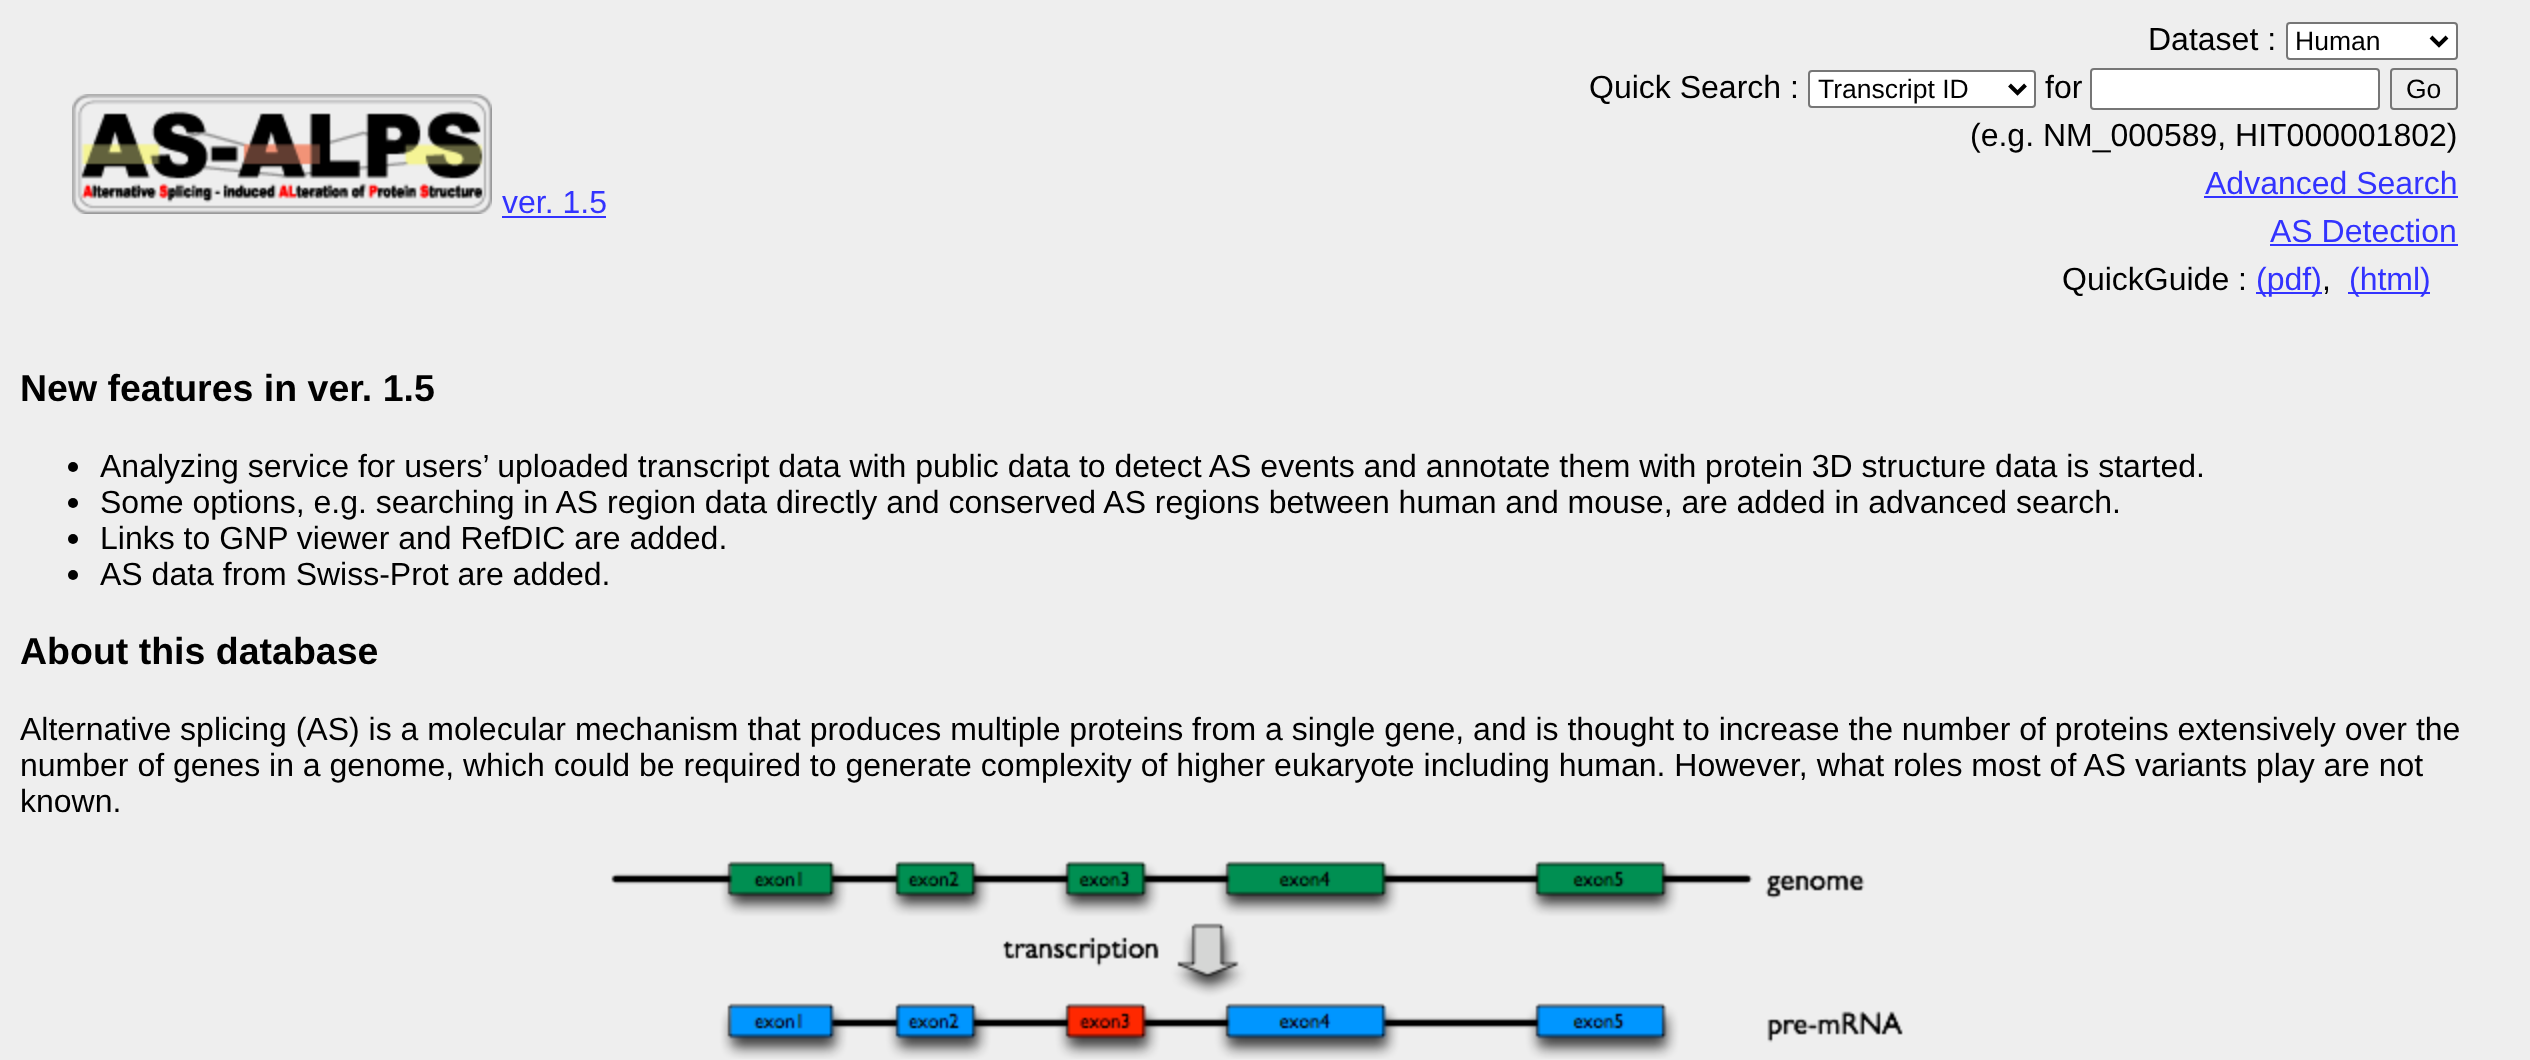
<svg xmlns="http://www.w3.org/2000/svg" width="2530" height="1060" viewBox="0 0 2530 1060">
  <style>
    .t1 { font: 32px Liberation Sans; fill: #000; }
    .t2 { font: 26.5px Liberation Sans; fill: #000; }
    .t3 { font: 32px Liberation Sans; fill: #33f; }
    .t4 { font: bold 37.5px Liberation Sans; fill: #000; }
  </style>
  <rect width="100%" height="100%" fill="#eee"/>
  <text x="2148" y="50" class="t1">Dataset :</text>
  <rect x="2287" y="23" width="170" height="36" rx="3" fill="#fff" stroke="#767676" stroke-width="2"/>
  <path d="M2431 37L2439 45L2447 37" fill="none" stroke="#000" stroke-width="4"/>
  <text x="2295" y="50" class="t2">Human</text>
  <image x="72" y="94" width="420" height="120" href="images/1.png"/>
  <text x="502" y="213" class="t3">ver. 1.5</text>
  <rect x="502" y="216" width="104" height="2" fill="#33f"/>
  <text x="1589" y="98" class="t1">Quick Search :</text>
  <rect x="1809" y="71" width="226" height="36" rx="3" fill="#fff" stroke="#767676" stroke-width="2"/>
  <path d="M2009.5 85L2017.5 93L2025.5 85" fill="none" stroke="#000" stroke-width="4"/>
  <text x="1818" y="98" class="t2">Transcript ID</text>
  <text x="2045" y="98" class="t1">for</text>
  <rect x="2091" y="69" width="288" height="40" rx="3" fill="#fff" stroke="#767676" stroke-width="2"/>
  <rect x="2391" y="69" width="66" height="40" rx="3" fill="none" stroke="#767676" stroke-width="2"/>
  <text x="2406" y="98" class="t2">Go</text>
  <text x="1970" y="146" class="t1">(e.g. NM_000589, HIT000001802)</text>
  <text x="2205" y="194" class="t3">Advanced Search</text>
  <rect x="2204" y="196" width="254" height="2" fill="#33f"/>
  <text x="2270" y="242" class="t3">AS Detection</text>
  <rect x="2270" y="244" width="188" height="2" fill="#33f"/>
  <text x="2062" y="290" class="t1">QuickGuide :</text>
  <rect x="2256" y="292" width="66" height="2" fill="#33f"/>
  <text x="2256" y="290" class="t3">(pdf)</text>
  <text x="2322" y="290" class="t1">,</text>
  <rect x="2348" y="292" width="82" height="2" fill="#33f"/>
  <text x="2349" y="290" class="t3">(html)</text>
  <text x="20" y="401" class="t4">New features in ver. 1.5</text>
  <circle cx="73" cy="467" r="5" fill="#000"/>
  <text x="100" y="477" class="t1">Analyzing service for users’ uploaded transcript data with public data to detect AS events and annotate them with protein 3D structure data is started.</text>
  <circle cx="73" cy="503" r="5" fill="#000"/>
  <text x="100" y="513" class="t1">Some options, e.g. searching in AS region data directly and conserved AS regions between human and mouse, are added in advanced search.</text>
  <circle cx="73" cy="539" r="5" fill="#000"/>
  <text x="100" y="549" class="t1">Links to GNP viewer and RefDIC are added.</text>
  <circle cx="73" cy="575" r="5" fill="#000"/>
  <text x="100" y="585" class="t1">AS data from Swiss-Prot are added.</text>
  <text x="20" y="664" class="t4">About this database</text>
  <text x="20" y="740" class="t1">Alternative splicing (AS) is a molecular mechanism that produces multiple proteins from a single gene, and is thought to increase the number of proteins extensively over the</text>
  <text x="20" y="776" class="t1">number of genes in a genome, which could be required to generate complexity of higher eukaryote including human. However, what roles most of AS variants play are not</text>
  <text x="20" y="812" class="t1">known.</text>
  <image x="611" y="861" width="1292" height="198" href="images/2.png"/>
</svg>
